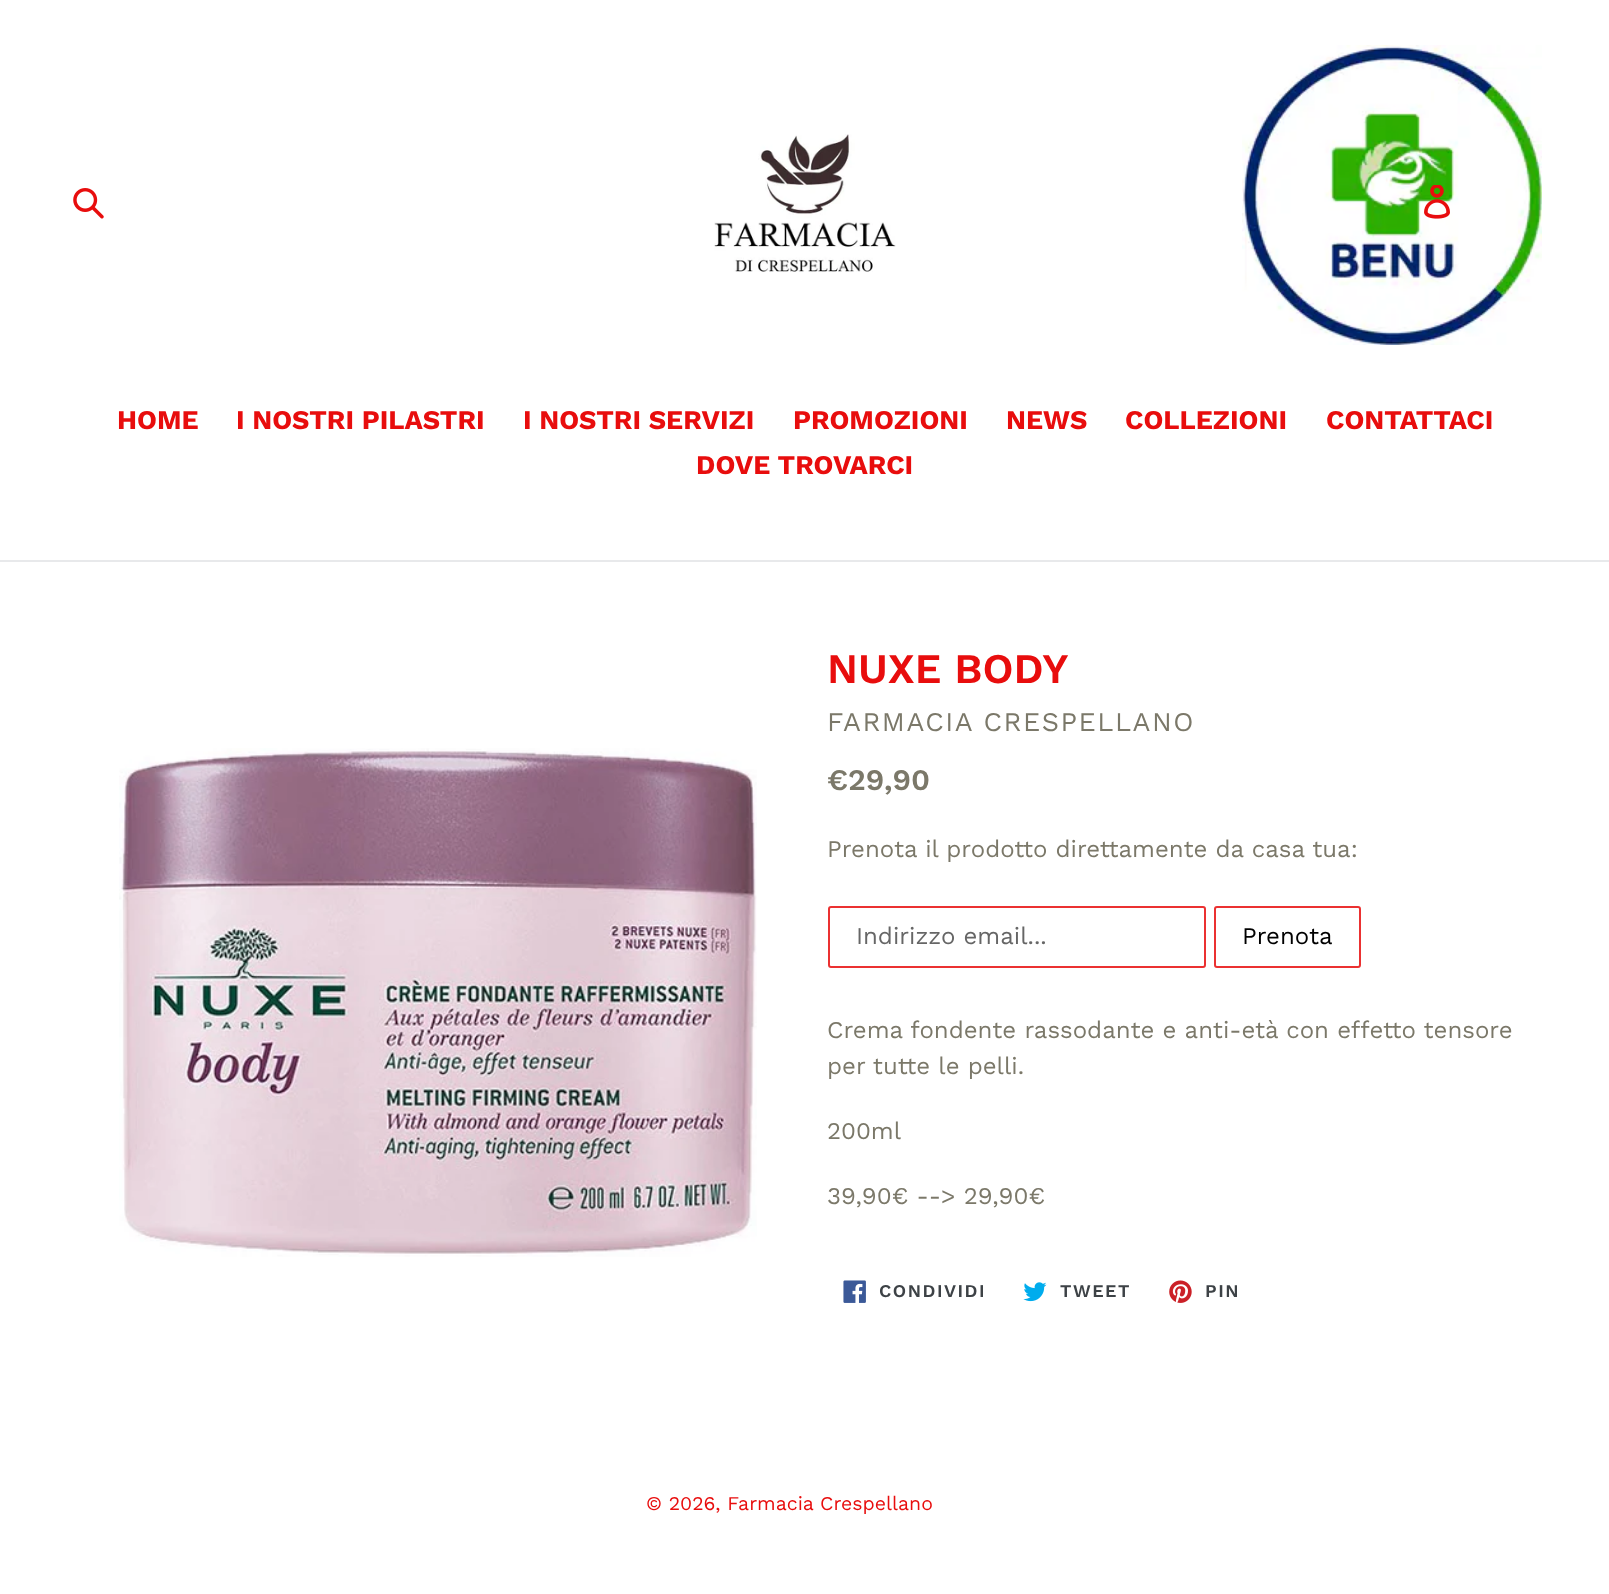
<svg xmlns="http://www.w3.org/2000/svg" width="1609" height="1594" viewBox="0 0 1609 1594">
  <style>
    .t1 { font: bold 27px Work Sans; fill: #e80d0d; }
    .t2 { font: 600 42px Work Sans; fill: #e80d0d; }
    .t3 { font: 27px Work Sans; letter-spacing: 1.5px; fill: #7b7869; }
    .t4 { font: 600 30px Work Sans; fill: #7b7869; }
    .t5 { font: 24px Work Sans; fill: #7b7869; }
    .t6 { font: 24px Work Sans; fill: #666; }
    .t7 { font: 24px Work Sans; fill: #000; }
    .t8 { font: 600 18px Work Sans; letter-spacing: 1.5px; fill: #3d4246; }
    .t9 { font: 19.5px Work Sans; fill: #e80d0d; }
  </style>
  <rect width="100%" height="100%" fill="#fff"/>
  <image x="73" y="188" width="31" height="31" href="images/1.png"/>
  <image x="714" y="134" width="182" height="138" href="images/2.png"/>
  <image x="1242" y="45" width="300" height="300" href="images/3.png"/>
  <image x="1424" y="185" width="26" height="34" href="images/4.png"/>
  <rect x="0" y="560" width="1609" height="2" fill="#e8e9eb"/>
  <text x="117" y="429" class="t1">HOME</text>
  <text x="236" y="429" class="t1">I NOSTRI PILASTRI</text>
  <text x="523" y="429" class="t1">I NOSTRI SERVIZI</text>
  <text x="793" y="429" class="t1">PROMOZIONI</text>
  <text x="1006" y="429" class="t1">NEWS</text>
  <text x="1125" y="429" class="t1">COLLEZIONI</text>
  <text x="1326" y="429" class="t1">CONTATTACI</text>
  <text x="696" y="474" class="t1">DOVE TROVARCI</text>
  <image x="119" y="748" width="638" height="509" href="images/5.png"/>
  <text x="827" y="683" class="t2">NUXE BODY</text>
  <text x="827" y="731" class="t3">FARMACIA CRESPELLANO</text>
  <text x="827" y="790" class="t4">€29,90</text>
  <text x="827" y="857" class="t5">Prenota il prodotto direttamente da casa tua:</text>
  <rect x="829" y="907" width="376" height="60" rx="2" fill="none" stroke="#eb3131" stroke-width="2"/>
  <text x="856" y="944" class="t6">Indirizzo email...</text>
  <rect x="1215" y="907" width="145" height="60" rx="2" fill="none" stroke="#eb3131" stroke-width="2"/>
  <text x="1242" y="944" class="t7">Prenota</text>
  <text x="827" y="1038" class="t5">Crema fondente rassodante e anti-età con effetto tensore</text>
  <text x="827" y="1074" class="t5">per tutte le pelli.</text>
  <text x="827" y="1139" class="t5">200ml</text>
  <text x="827" y="1204" class="t5">39,90€ --&gt; 29,90€</text>
  <image x="843" y="1280" width="23" height="23" href="images/6.png"/>
  <text x="879" y="1297" class="t8">CONDIVIDI</text>
  <image x="1023" y="1282" width="24" height="20" href="images/7.png"/>
  <text x="1060" y="1297" class="t8">TWEET</text>
  <image x="1169" y="1280" width="23" height="23" href="images/8.png"/>
  <text x="1205" y="1297" class="t8">PIN</text>
  <text x="646" y="1510" class="t9">© 2026, Farmacia Crespellano</text>
</svg>
